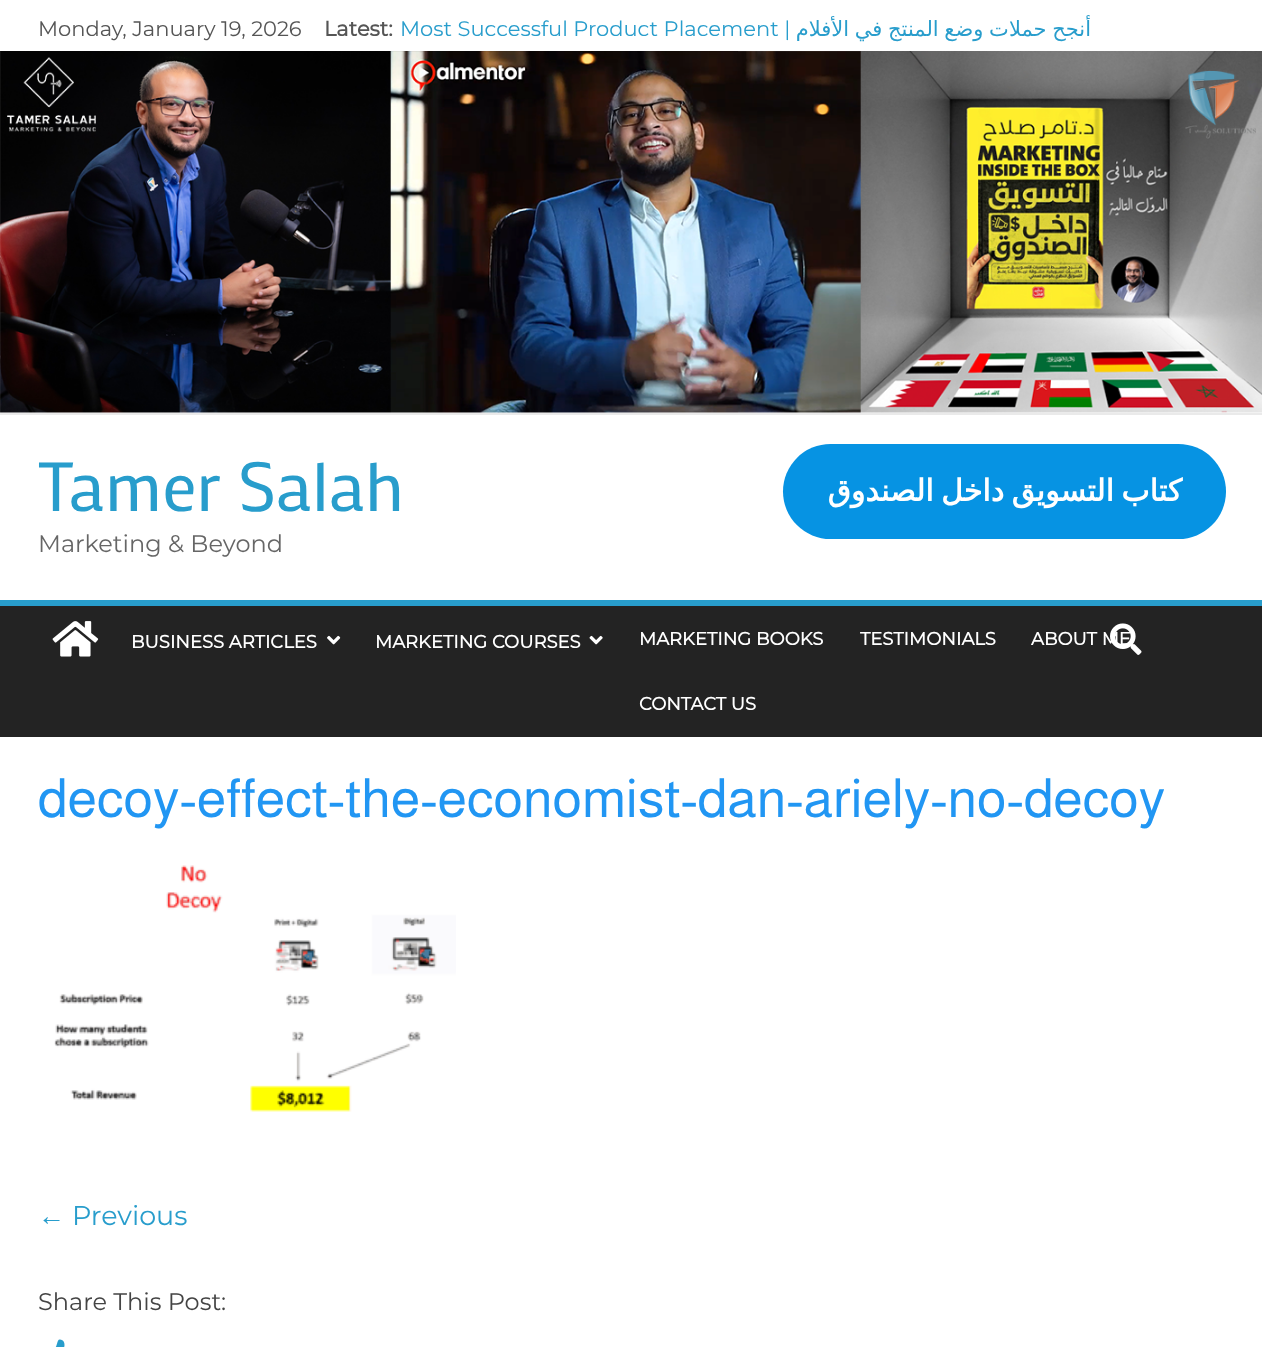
<svg xmlns="http://www.w3.org/2000/svg" width="1262" height="1347" viewBox="0 0 1262 1347">
  <style>
    .t1 { font: 100 21px Montserrat; fill: #555; }
    .t2 { font: bold 21px Montserrat; fill: #555; }
    .t3 { font: 100 21px Montserrat; fill: #289dcc; }
    .t4 { font: 21px DejaVu Sans; direction: rtl; fill: #289dcc; }
    .t5 { font: 69px Mako; fill: #289dcc; }
    .t6 { font: 100 24px Montserrat; fill: #666; }
    .t7 { font: bold 30px DejaVu Sans; direction: rtl; fill: #fff; }
    .t8 { font: bold 18px Montserrat; fill: #fff; }
    .t9 { font: 54px Almarai; fill: #2196f3; }
    .t10 { font: 27px Liberation Serif; fill: #289dcc; }
    .t11 { font: 100 27px Montserrat; fill: #289dcc; }
    .t12 { font: 100 24px Montserrat; fill: #444; }
  </style>
  <defs>
    <clipPath id="clip1"><rect x="393" y="12" width="698" height="38"/></clipPath>
  </defs>
  <rect width="100%" height="100%" fill="#fff"/>
  <text x="38" y="36" class="t1">Monday, January 19, 2026</text>
  <text x="324" y="36" class="t2">Latest:</text>
  <text x="400" y="36" class="t3">Most Successful Product Placement |</text>
  <g clip-path="url(#clip1)">
    <text x="1091" y="36" word-spacing="-1" class="t4">أنجح حملات وضع المنتج في الأفلام</text>
  </g>
  <rect x="0" y="413" width="1262" height="2" fill="#eaeaea"/>
  <image x="0" y="51" width="1262" height="362" href="images/1.png"/>
  <text x="38" y="511" class="t5">Tamer Salah</text>
  <text x="38" y="552" class="t6">Marketing &amp; Beyond</text>
  <rect x="783" y="444" width="443" height="95" rx="47.5" fill="#0693e3"/>
  <text x="1182" y="501" word-spacing="-2" class="t7">كتاب التسويق داخل الصندوق</text>
  <rect x="0" y="606" width="1262" height="131" fill="#232323"/>
  <rect x="0" y="600" width="1262" height="6" fill="#289dcc"/>
  <image x="52" y="621" width="47" height="36" href="images/2.png"/>
  <text x="1031" y="645" class="t8">ABOUT ME</text>
  <image x="1110" y="623" width="32" height="32" href="images/3.png"/>
  <text x="131" y="648" class="t8">BUSINESS ARTICLES</text>
  <image x="327" y="635" width="14" height="10" href="images/4.png"/>
  <text x="375" y="648" class="t8">MARKETING COURSES</text>
  <image x="589" y="635" width="14" height="10" href="images/5.png"/>
  <text x="639" y="645" class="t8">MARKETING BOOKS</text>
  <text x="860" y="645" class="t8">TESTIMONIALS</text>
  <text x="639" y="710" class="t8">CONTACT US</text>
  <text x="38" y="817" class="t9">decoy-effect-the-economist-dan-ariely-no-decoy</text>
  <image x="54" y="865" width="402" height="247" href="images/6.png"/>
  <text x="38" y="1225" class="t10">←</text>
  <text x="72" y="1225" class="t11">Previous</text>
  <text x="38" y="1310" class="t12">Share This Post:</text>
  <image x="55" y="1339" width="10" height="8" href="images/7.png"/>
</svg>
